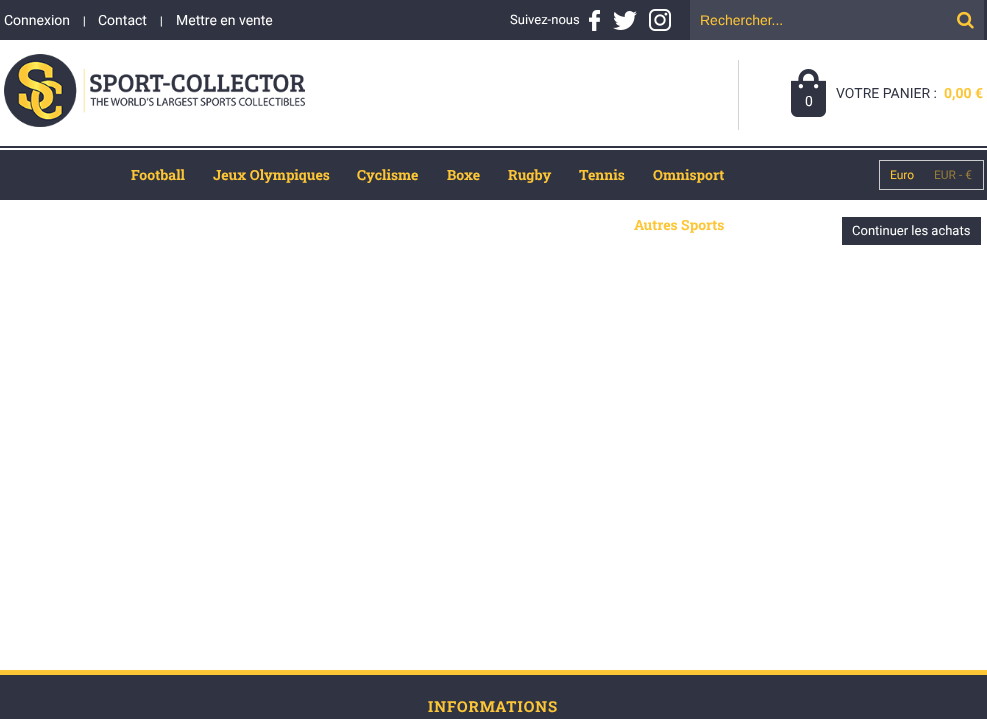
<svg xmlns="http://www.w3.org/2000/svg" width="987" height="719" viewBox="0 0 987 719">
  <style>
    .t1 { font: 14px Roboto; fill: #fff; }
    .t2 { font: 12px Roboto Slab; fill: #fff; }
    .t3 { font: 13px Roboto; fill: #fff; }
    .t4 { font: 14px Liberation Sans; fill: #fdc637; }
    .t5 { font: 14px Roboto; fill: #303341; }
    .t6 { font: bold 14px Roboto; fill: #fdc637; }
    .t7 { font: bold 14px Roboto Slab; fill: #fdc637; }
    .t8 { font: 12px Roboto; fill: #fdc637; }
    .t9 { font: 12px Roboto; fill: #977d3c; }
    .t10 { font: bold 15px Roboto Slab; letter-spacing: 1px; fill: #fdc637; }
  </style>
  <rect width="100%" height="100%" fill="#fff"/>
  <rect x="0" y="150" width="987" height="50" fill="#303341"/>
  <rect x="0" y="146" width="987" height="2" fill="#303341"/>
  <rect x="0" y="0" width="987" height="40" fill="#303341"/>
  <text x="4" y="25" class="t1">Connexion</text>
  <text x="83" y="25" class="t2">|</text>
  <text x="98" y="25" class="t1">Contact</text>
  <text x="160" y="25" class="t2">|</text>
  <text x="176" y="25" class="t1">Mettre en vente</text>
  <text x="510" y="24" class="t3">Suivez-nous</text>
  <image x="589" y="10" width="11" height="21" href="images/1.png"/>
  <image x="613" y="11" width="24" height="19" href="images/2.png"/>
  <image x="649" y="9" width="22" height="22" href="images/3.png"/>
  <rect x="690" y="0" width="294" height="40" fill="#444755"/>
  <text x="700" y="25" class="t4">Rechercher...</text>
  <image x="957" y="11" width="17" height="18" href="images/4.png"/>
  <image x="4" y="54" width="301" height="73" href="images/5.png"/>
  <rect x="738" y="60" width="1" height="70" fill="#d3d4d7"/>
  <image x="791" y="69" width="35" height="48" href="images/6.png"/>
  <text x="805" y="106" class="t1">0</text>
  <text x="836" y="98" class="t5">VOTRE PANIER :</text>
  <text x="944" y="98" class="t6">0,00 €</text>
  <text x="131" y="180" class="t7">Football</text>
  <text x="213" y="180" class="t7">Jeux Olympiques</text>
  <text x="357" y="180" class="t7">Cyclisme</text>
  <text x="447" y="180" class="t7">Boxe</text>
  <text x="508" y="180" class="t7">Rugby</text>
  <text x="579" y="180" class="t7">Tennis</text>
  <text x="653" y="180" class="t7">Omnisport</text>
  <text x="634" y="230" class="t7">Autres Sports</text>
  <rect x="879.5" y="160.5" width="104" height="29" fill="none" stroke="#ccc"/>
  <text x="890" y="179" class="t8">Euro</text>
  <text x="934" y="179" class="t9">EUR - €</text>
  <rect x="842" y="217" width="139" height="28" fill="#303341"/>
  <text x="852" y="235" class="t3">Continuer les achats</text>
  <rect x="0" y="675" width="987" height="44" fill="#303341"/>
  <rect x="0" y="670" width="987" height="5" fill="#fdc637"/>
  <text x="428" y="712" class="t10">INFORMATIONS</text>
</svg>
